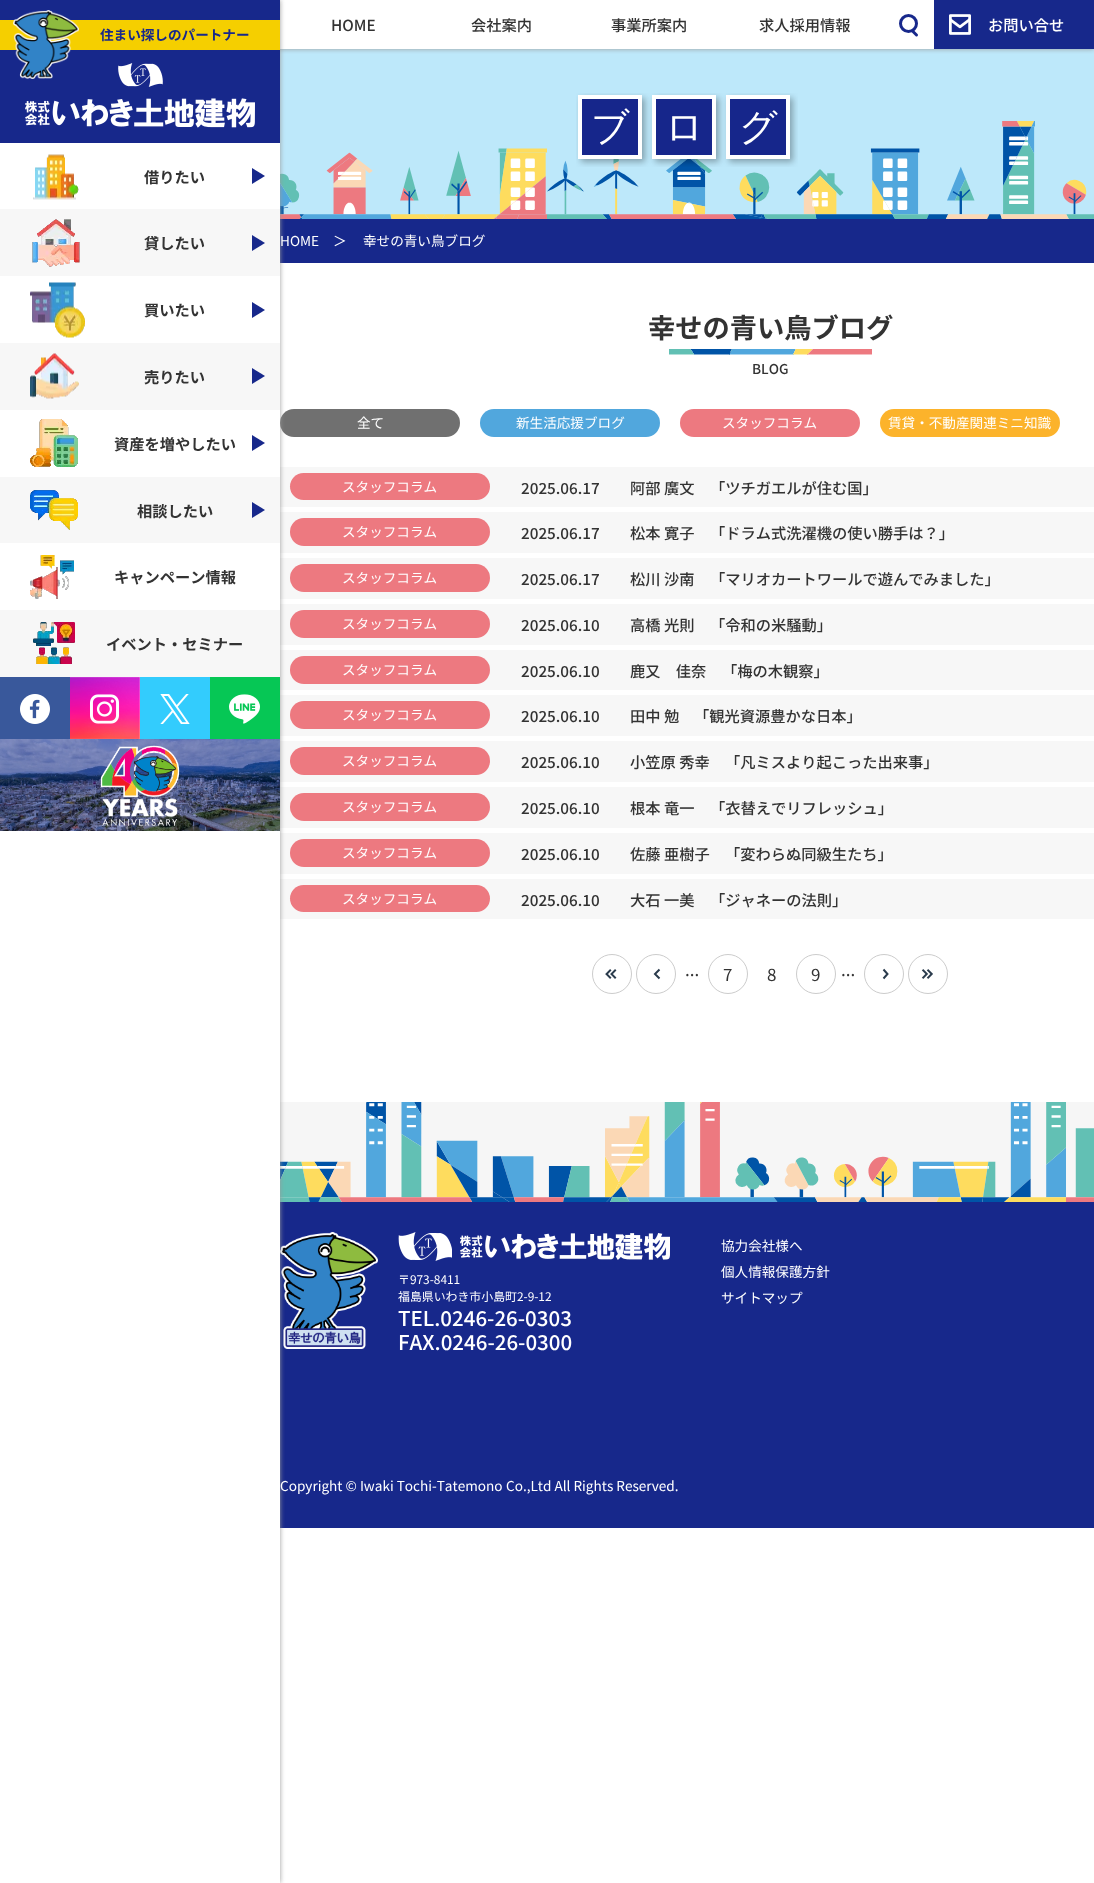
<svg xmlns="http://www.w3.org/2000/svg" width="1094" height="1883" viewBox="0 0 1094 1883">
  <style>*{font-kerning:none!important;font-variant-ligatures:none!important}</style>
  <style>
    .t1 { font: 500 15.25px Noto Sans JP; fill: #333; }
    .t2 { font: 500 15.25px Noto Sans JP; fill: #fff; }
    .t3 { font: bold 13.6px Noto Sans JP; fill: #17288b; }
    .t4 { font: bold 15.25px Noto Sans JP; fill: #333; }
    .t5 { font: 13.6px Noto Sans JP; fill: #fff; }
    .t6 { font: bold 27.25px Noto Sans JP; fill: #333; }
    .t7 { font: 500 13.6px Noto Sans JP; fill: #333; }
    .t8 { font: 17px Noto Sans JP; fill: #333; }
    .t9 { font: 11.9px Noto Sans JP; fill: #fff; }
    .t10 { font: 500 20.5px Noto Sans JP; fill: #fff; }
  </style>
  <defs>
    <clipPath id="clip1"><rect x="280" y="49" width="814" height="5"/></clipPath>
  </defs>
  <rect width="100%" height="100%" fill="#fff"/>
  <rect x="280" y="49" width="814" height="170" fill="#bde8fa"/>
  <g clip-path="url(#clip1)">
    <rect x="0" y="0" width="1094" height="49" fill="#999" filter="blur(2.5px)"/>
  </g>
  <text x="331" y="31" class="t1">HOME</text>
  <text x="471" y="31" class="t1">会社案内</text>
  <text x="611" y="31" class="t1">事業所案内</text>
  <text x="759" y="31" class="t1">求人採用情報</text>
  <circle cx="908.5" cy="23.5" r="8" fill="none" stroke="#17288b" stroke-width="3"/>
  <path d="M912.5 31L916.5 35" fill="none" stroke="#17288b" stroke-width="3" stroke-linecap="round"/>
  <rect x="934" y="0" width="160" height="49" fill="#17288b"/>
  <image x="949" y="14" width="22" height="21" href="images/1.png"/>
  <text x="988" y="31" class="t2">お問い合せ</text>
  <image x="280" y="121" width="814" height="98" href="images/3.png"/>
  <image x="576" y="93" width="222" height="74" href="images/2.png"/>
  <rect x="280" y="219" width="814" height="44" fill="#17288b"/>
  <rect x="280" y="409" width="180" height="28" rx="14" fill="#707070"/>
  <rect x="280" y="467" width="814" height="40" fill="#f7f7f7"/>
  <rect x="280" y="512" width="814" height="41" fill="#f7f7f7"/>
  <rect x="280" y="558" width="814" height="41" fill="#f7f7f7"/>
  <rect x="280" y="604" width="814" height="41" fill="#f7f7f7"/>
  <rect x="280" y="650" width="814" height="40" fill="#f7f7f7"/>
  <rect x="280" y="695" width="814" height="41" fill="#f7f7f7"/>
  <rect x="280" y="741" width="814" height="41" fill="#f7f7f7"/>
  <rect x="280" y="787" width="814" height="41" fill="#f7f7f7"/>
  <rect x="280" y="833" width="814" height="41" fill="#f7f7f7"/>
  <rect x="280" y="879" width="814" height="40" fill="#f7f7f7"/>
  <rect x="280" y="1102" width="814" height="100" fill="#f6f6f6"/>
  <image x="280" y="1102" width="814" height="100" href="images/26.png"/>
  <rect x="280" y="1202" width="814" height="326" fill="#17288b"/>
  <image x="280" y="1232" width="98" height="117" href="images/27.png"/>
  <rect x="0" y="0" width="280" height="1883" fill="#999" filter="blur(2.5px)"/>
  <rect x="0" y="143" width="280" height="1740" fill="#fff"/>
  <rect x="0" y="0" width="280" height="143" fill="#17288b"/>
  <rect x="0" y="20" width="280" height="30" fill="#f5cf00"/>
  <image x="13" y="10" width="66" height="69" href="images/4.png"/>
  <text x="100" y="40" class="t3">住まい探しのパートナー</text>
  <image x="118" y="63" width="45" height="24" href="images/5.png"/>
  <image x="25" y="98" width="230" height="30" href="images/6.png"/>
  <image x="33" y="154" width="46" height="46" href="images/7.png"/>
  <text x="144" y="183" class="t4">借りたい</text>
  <image x="252" y="168" width="13" height="16" href="images/8.png"/>
  <rect x="0" y="209" width="280" height="67" fill="#f7f7f7"/>
  <image x="32" y="219" width="48" height="48" href="images/9.png"/>
  <text x="144" y="249" class="t4">貸したい</text>
  <image x="252" y="235" width="13" height="16" href="images/10.png"/>
  <image x="30" y="282" width="55" height="56" href="images/11.png"/>
  <text x="144" y="316" class="t4">買いたい</text>
  <image x="252" y="302" width="13" height="16" href="images/8.png"/>
  <rect x="0" y="343" width="280" height="67" fill="#f7f7f7"/>
  <image x="30" y="353" width="49" height="46" href="images/12.png"/>
  <text x="144" y="383" class="t4">売りたい</text>
  <image x="252" y="368" width="13" height="16" href="images/10.png"/>
  <image x="30" y="419" width="48" height="48" href="images/13.png"/>
  <text x="114" y="450" class="t4">資産を増やしたい</text>
  <image x="252" y="435" width="13" height="16" href="images/8.png"/>
  <rect x="0" y="477" width="280" height="66" fill="#f7f7f7"/>
  <image x="30" y="490" width="48" height="40" href="images/14.png"/>
  <text x="137" y="517" class="t4">相談したい</text>
  <image x="252" y="502" width="13" height="16" href="images/10.png"/>
  <image x="30" y="555" width="44" height="44" href="images/15.png"/>
  <text x="114" y="583" class="t4">キャンペーン情報</text>
  <rect x="0" y="610" width="280" height="67" fill="#f7f7f7"/>
  <image x="33" y="622" width="42" height="42" href="images/16.png"/>
  <text x="106" y="650" class="t4">イベント・セミナー</text>
  <rect x="0" y="677" width="70" height="62" fill="#39589b"/>
  <image x="20" y="694" width="30" height="30" href="images/17.png"/>
  <image x="70" y="677" width="70" height="62" href="images/18.png"/>
  <image x="90" y="694" width="29" height="30" href="images/19.png"/>
  <rect x="140" y="677" width="70" height="62" fill="#33ccfd"/>
  <image x="160" y="694" width="30" height="30" href="images/20.png"/>
  <rect x="210" y="677" width="70" height="62" fill="#06c755"/>
  <image x="229" y="694" width="31" height="30" href="images/21.png"/>
  <image x="0" y="739" width="280" height="92" href="images/22.png"/>
  <text x="280" y="246" class="t5">HOME</text>
  <text x="333" y="246" class="t5">＞</text>
  <text x="363" y="246" class="t5">幸せの青い鳥ブログ</text>
  <text x="648" y="338" class="t6">幸せの青い鳥ブログ</text>
  <image x="669" y="349" width="203" height="6" href="images/23.png"/>
  <text x="752" y="374" class="t7">BLOG</text>
  <text x="357" y="428" class="t5">全て</text>
  <rect x="480" y="409" width="180" height="28" rx="14" fill="#51a7dd"/>
  <text x="516" y="428" class="t5">新生活応援ブログ</text>
  <rect x="680" y="409" width="180" height="28" rx="14" fill="#ed7980"/>
  <text x="722" y="428" class="t5">スタッフコラム</text>
  <rect x="880" y="409" width="180" height="28" rx="14" fill="#fcb32b"/>
  <text x="888" y="428" class="t5">賃貸・不動産関連ミニ知識</text>
  <rect x="290" y="473" width="200" height="27" rx="13.5" fill="#ed7980"/>
  <text x="342" y="492" class="t5">スタッフコラム</text>
  <text x="521" y="494" class="t1">2025.06.17</text>
  <text x="630" y="494" class="t1">阿部 廣文</text>
  <text x="710" y="494" class="t1">「ツチガエルが住む国」</text>
  <rect x="290" y="518" width="200" height="28" rx="14" fill="#ed7980"/>
  <text x="342" y="537" class="t5">スタッフコラム</text>
  <text x="521" y="539" class="t1">2025.06.17</text>
  <text x="630" y="539" class="t1">松本 寛子</text>
  <text x="710" y="539" class="t1">「ドラム式洗濯機の使い勝手は？」</text>
  <rect x="290" y="564" width="200" height="28" rx="14" fill="#ed7980"/>
  <text x="342" y="583" class="t5">スタッフコラム</text>
  <text x="521" y="585" class="t1">2025.06.17</text>
  <text x="630" y="585" class="t1">松川 沙南</text>
  <text x="710" y="585" class="t1">「マリオカートワールで遊んでみました」</text>
  <rect x="290" y="610" width="200" height="28" rx="14" fill="#ed7980"/>
  <text x="342" y="629" class="t5">スタッフコラム</text>
  <text x="521" y="631" class="t1">2025.06.10</text>
  <text x="630" y="631" class="t1">高橋 光則</text>
  <text x="710" y="631" class="t1">「令和の米騒動」</text>
  <rect x="290" y="656" width="200" height="28" rx="14" fill="#ed7980"/>
  <text x="342" y="675" class="t5">スタッフコラム</text>
  <text x="521" y="677" class="t1">2025.06.10</text>
  <text x="630" y="677" class="t1">鹿又　佳奈</text>
  <text x="722" y="677" class="t1">「梅の木観察」</text>
  <rect x="290" y="701" width="200" height="28" rx="14" fill="#ed7980"/>
  <text x="342" y="720" class="t5">スタッフコラム</text>
  <text x="521" y="722" class="t1">2025.06.10</text>
  <text x="630" y="722" class="t1">田中 勉</text>
  <text x="694" y="722" class="t1">「観光資源豊かな日本」</text>
  <rect x="290" y="747" width="200" height="28" rx="14" fill="#ed7980"/>
  <text x="342" y="766" class="t5">スタッフコラム</text>
  <text x="521" y="768" class="t1">2025.06.10</text>
  <text x="630" y="768" class="t1">小笠原 秀幸</text>
  <text x="725" y="768" class="t1">「凡ミスより起こった出来事」</text>
  <rect x="290" y="793" width="200" height="28" rx="14" fill="#ed7980"/>
  <text x="342" y="812" class="t5">スタッフコラム</text>
  <text x="521" y="814" class="t1">2025.06.10</text>
  <text x="630" y="814" class="t1">根本 竜一</text>
  <text x="710" y="814" class="t1">「衣替えでリフレッシュ」</text>
  <rect x="290" y="839" width="200" height="28" rx="14" fill="#ed7980"/>
  <text x="342" y="858" class="t5">スタッフコラム</text>
  <text x="521" y="860" class="t1">2025.06.10</text>
  <text x="630" y="860" class="t1">佐藤 亜樹子</text>
  <text x="725" y="860" class="t1">「変わらぬ同級生たち」</text>
  <rect x="290" y="885" width="200" height="27" rx="13.5" fill="#ed7980"/>
  <text x="342" y="904" class="t5">スタッフコラム</text>
  <text x="521" y="906" class="t1">2025.06.10</text>
  <text x="630" y="906" class="t1">大石 一美</text>
  <text x="710" y="906" class="t1">「ジャネーの法則」</text>
  <circle cx="612" cy="974" r="19.5" fill="none" stroke="#ccc"/>
  <image x="605" y="969" width="12" height="10" href="images/24.png"/>
  <circle cx="656" cy="974" r="19.5" fill="none" stroke="#ccc"/>
  <path d="M659.5 978.5L655 974L659.5 969.5" fill="none" stroke="#2a3b4c" stroke-width="2"/>
  <text x="685" y="976" class="t8">...</text>
  <circle cx="728" cy="974" r="19.5" fill="none" stroke="#ccc"/>
  <text x="723" y="981" class="t8">7</text>
  <text x="767" y="981" class="t8">8</text>
  <circle cx="816" cy="974" r="19.5" fill="none" stroke="#ccc"/>
  <text x="811" y="981" class="t8">9</text>
  <text x="841" y="976" class="t8">...</text>
  <circle cx="884" cy="974" r="19.5" fill="none" stroke="#ccc"/>
  <path d="M883.5 969.5L887.5 974L883.5 978.5" fill="none" stroke="#2a3b4c" stroke-width="2"/>
  <circle cx="928" cy="974" r="19.5" fill="none" stroke="#ccc"/>
  <image x="921" y="969" width="12" height="10" href="images/25.png"/>
  <image x="398" y="1232" width="54" height="29" href="images/28.png"/>
  <image x="460" y="1233" width="210" height="27" href="images/29.png"/>
  <text x="398" y="1284" class="t9">〒973-8411</text>
  <text x="398" y="1301" class="t9">福島県いわき市小島町2-9-12</text>
  <text x="398" y="1326" class="t10">TEL.0246-26-0303</text>
  <text x="398" y="1350" class="t10">FAX.0246-26-0300</text>
  <text x="721" y="1251" class="t5">協力会社様へ</text>
  <text x="721" y="1277" class="t5">個人情報保護方針</text>
  <text x="721" y="1303" class="t5">サイトマップ</text>
  <text x="280" y="1491" class="t5">Copyright © Iwaki Tochi-Tatemono</text>
  <text x="506" y="1491" class="t5">Co.,Ltd All Rights Reserved.</text>
</svg>
